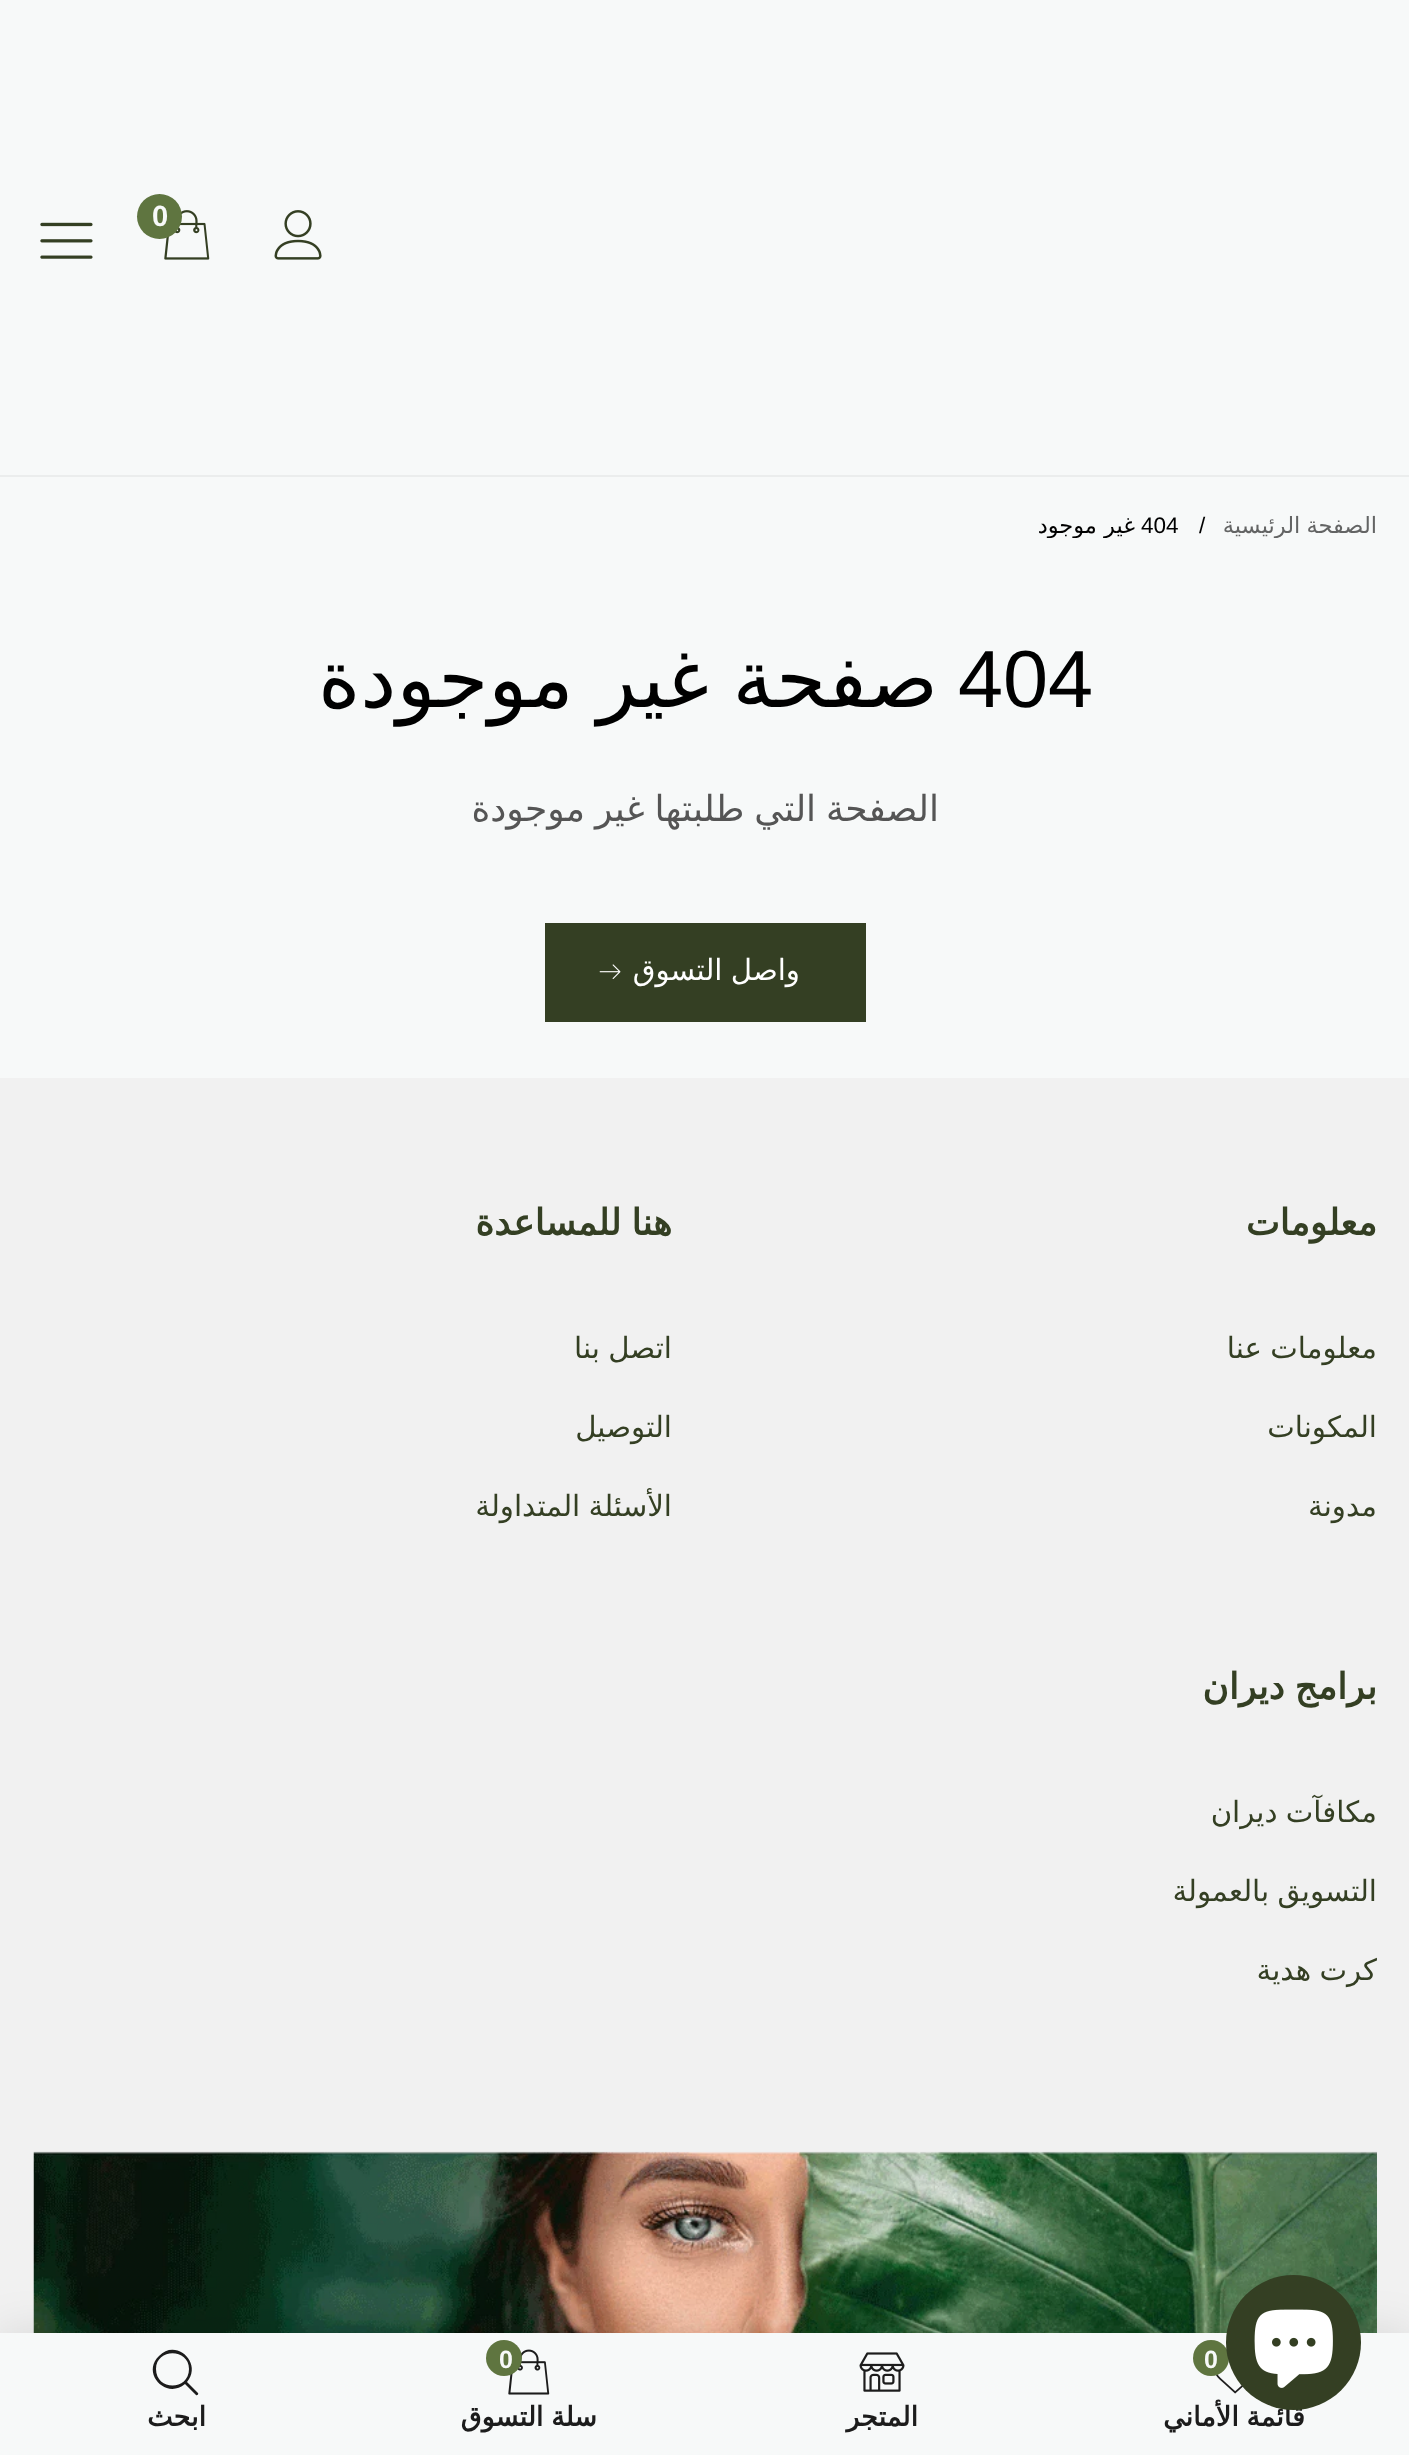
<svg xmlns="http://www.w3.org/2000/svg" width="1409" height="2455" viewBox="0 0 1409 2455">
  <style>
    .t1 { font: bold 29.25px Liberation Sans; fill: #f7f9f9; }
    .t2 { font: 22.5px DejaVu Sans; direction: rtl; fill: #636464; }
    .t3 { font: 22.5px Liberation Sans; fill: #000; }
    .t4 { font: 22.5px DejaVu Sans; direction: rtl; fill: #000; }
    .t5 { font: 81px Liberation Sans; fill: #000; }
    .t6 { font: 81px DejaVu Sans; direction: rtl; fill: #000; }
    .t7 { font: 36px DejaVu Sans; direction: rtl; fill: #555; }
    .t8 { font: 29.25px DejaVu Sans; direction: rtl; fill: #fff; }
    .t9 { font: bold 36px DejaVu Sans; direction: rtl; fill: #343f23; }
    .t10 { font: 29.25px DejaVu Sans; direction: rtl; fill: #343f23; }
    .t11 { font: bold 27px DejaVu Sans; direction: rtl; fill: #1c1c1c; }
    .t12 { font: bold 25px Liberation Sans; letter-spacing: -2px; fill: #f7f9f9; }
  </style>
  <defs>
    <clipPath id="clip1"><rect x="1037" y="511" width="340" height="27"/></clipPath>
  </defs>
  <rect width="100%" height="100%" fill="#f7f9f9"/>
  <rect x="0" y="475" width="1409" height="2" fill="#ebeded"/>
  <image x="274" y="210" width="48" height="50" href="images/1.png"/>
  <image x="164" y="210" width="46" height="50" href="images/2.png"/>
  <circle cx="159.5" cy="216.5" r="22.5" fill="#5f7540"/>
  <text x="152" y="226" class="t1">0</text>
  <image x="40" y="222" width="53" height="37" href="images/3.png"/>
  <g clip-path="url(#clip1)">
    <text x="1377" y="533" word-spacing="-1" class="t2">الصفحة الرئيسية</text>
  </g>
  <text x="1199" y="533" class="t3">/</text>
  <text x="1141" y="533" class="t3">404</text>
  <g clip-path="url(#clip1)">
    <text x="1135" y="533" class="t4">غير موجود</text>
  </g>
  <text x="958" y="707" class="t5">404</text>
  <text x="938" y="707" word-spacing="-2" class="t6">صفحة غير موجودة</text>
  <text x="939" y="821" word-spacing="-1.5" class="t7">الصفحة التي طلبتها غير موجودة</text>
  <rect x="545" y="923" width="321" height="99" fill="#343f23"/>
  <text x="800" y="980" word-spacing="-1" class="t8">واصل التسوق</text>
  <image x="599" y="964" width="22" height="15" href="images/4.png"/>
  <rect x="0" y="1078" width="1409" height="1255" fill="#f1f1f1"/>
  <text x="1377" y="1235" class="t9">معلومات</text>
  <text x="1377" y="1358" word-spacing="-1" class="t10">معلومات عنا</text>
  <text x="1377" y="1437" class="t10">المكونات</text>
  <text x="1377" y="1516" class="t10">مدونة</text>
  <text x="672" y="1235" word-spacing="-1.5" class="t9">هنا للمساعدة</text>
  <text x="672" y="1358" word-spacing="-1" class="t10">اتصل بنا</text>
  <text x="672" y="1437" class="t10">التوصيل</text>
  <text x="672" y="1516" word-spacing="-1" class="t10">الأسئلة المتداولة</text>
  <text x="1377" y="1699" word-spacing="-1.5" class="t9">برامج ديران</text>
  <text x="1377" y="1822" word-spacing="-1" class="t10">مكافآت ديران</text>
  <text x="1377" y="1901" word-spacing="-1" class="t10">التسويق بالعمولة</text>
  <text x="1377" y="1980" word-spacing="-1" class="t10">كرت هدية</text>
  <image x="33" y="2151" width="1344" height="182" href="images/5.png"/>
  <rect x="0" y="2331" width="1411" height="124" fill="#0000001a" filter="blur(21.5px)"/>
  <rect x="0" y="2333" width="1409" height="122" fill="#f7f9f9"/>
  <image x="1216" y="2374" width="27" height="20" href="images/7.png"/>
  <circle cx="1211" cy="2358" r="18" fill="#5f7540"/>
  <text x="1305" y="2426" word-spacing="-1" class="t11">قائمة الأماني</text>
  <circle cx="1293.5" cy="2342.5" r="67.5" fill="#343f23"/>
  <image x="1254" y="2309" width="79" height="79" href="images/6.png"/>
  <text x="1204" y="2368" class="t12">0</text>
  <image x="859" y="2352" width="46" height="40" href="images/8.png"/>
  <text x="918" y="2426" class="t11">المتجر</text>
  <image x="508" y="2349" width="42" height="46" href="images/9.png"/>
  <circle cx="504" cy="2358" r="18" fill="#5f7540"/>
  <text x="499" y="2368" class="t12">0</text>
  <text x="597" y="2426" word-spacing="-1" class="t11">سلة التسوق</text>
  <path d="M198 2393L187 2382C203 2363 176 2338 159 2356C141 2373 166 2400 185 2384L196 2395C197 2396 199 2394 198 2393ZM156 2369C156 2348 189 2348 189 2369C189 2391 156 2391 156 2369Z" fill="#1c1c1c"/>
  <text x="206" y="2426" class="t11">ابحث</text>
</svg>
